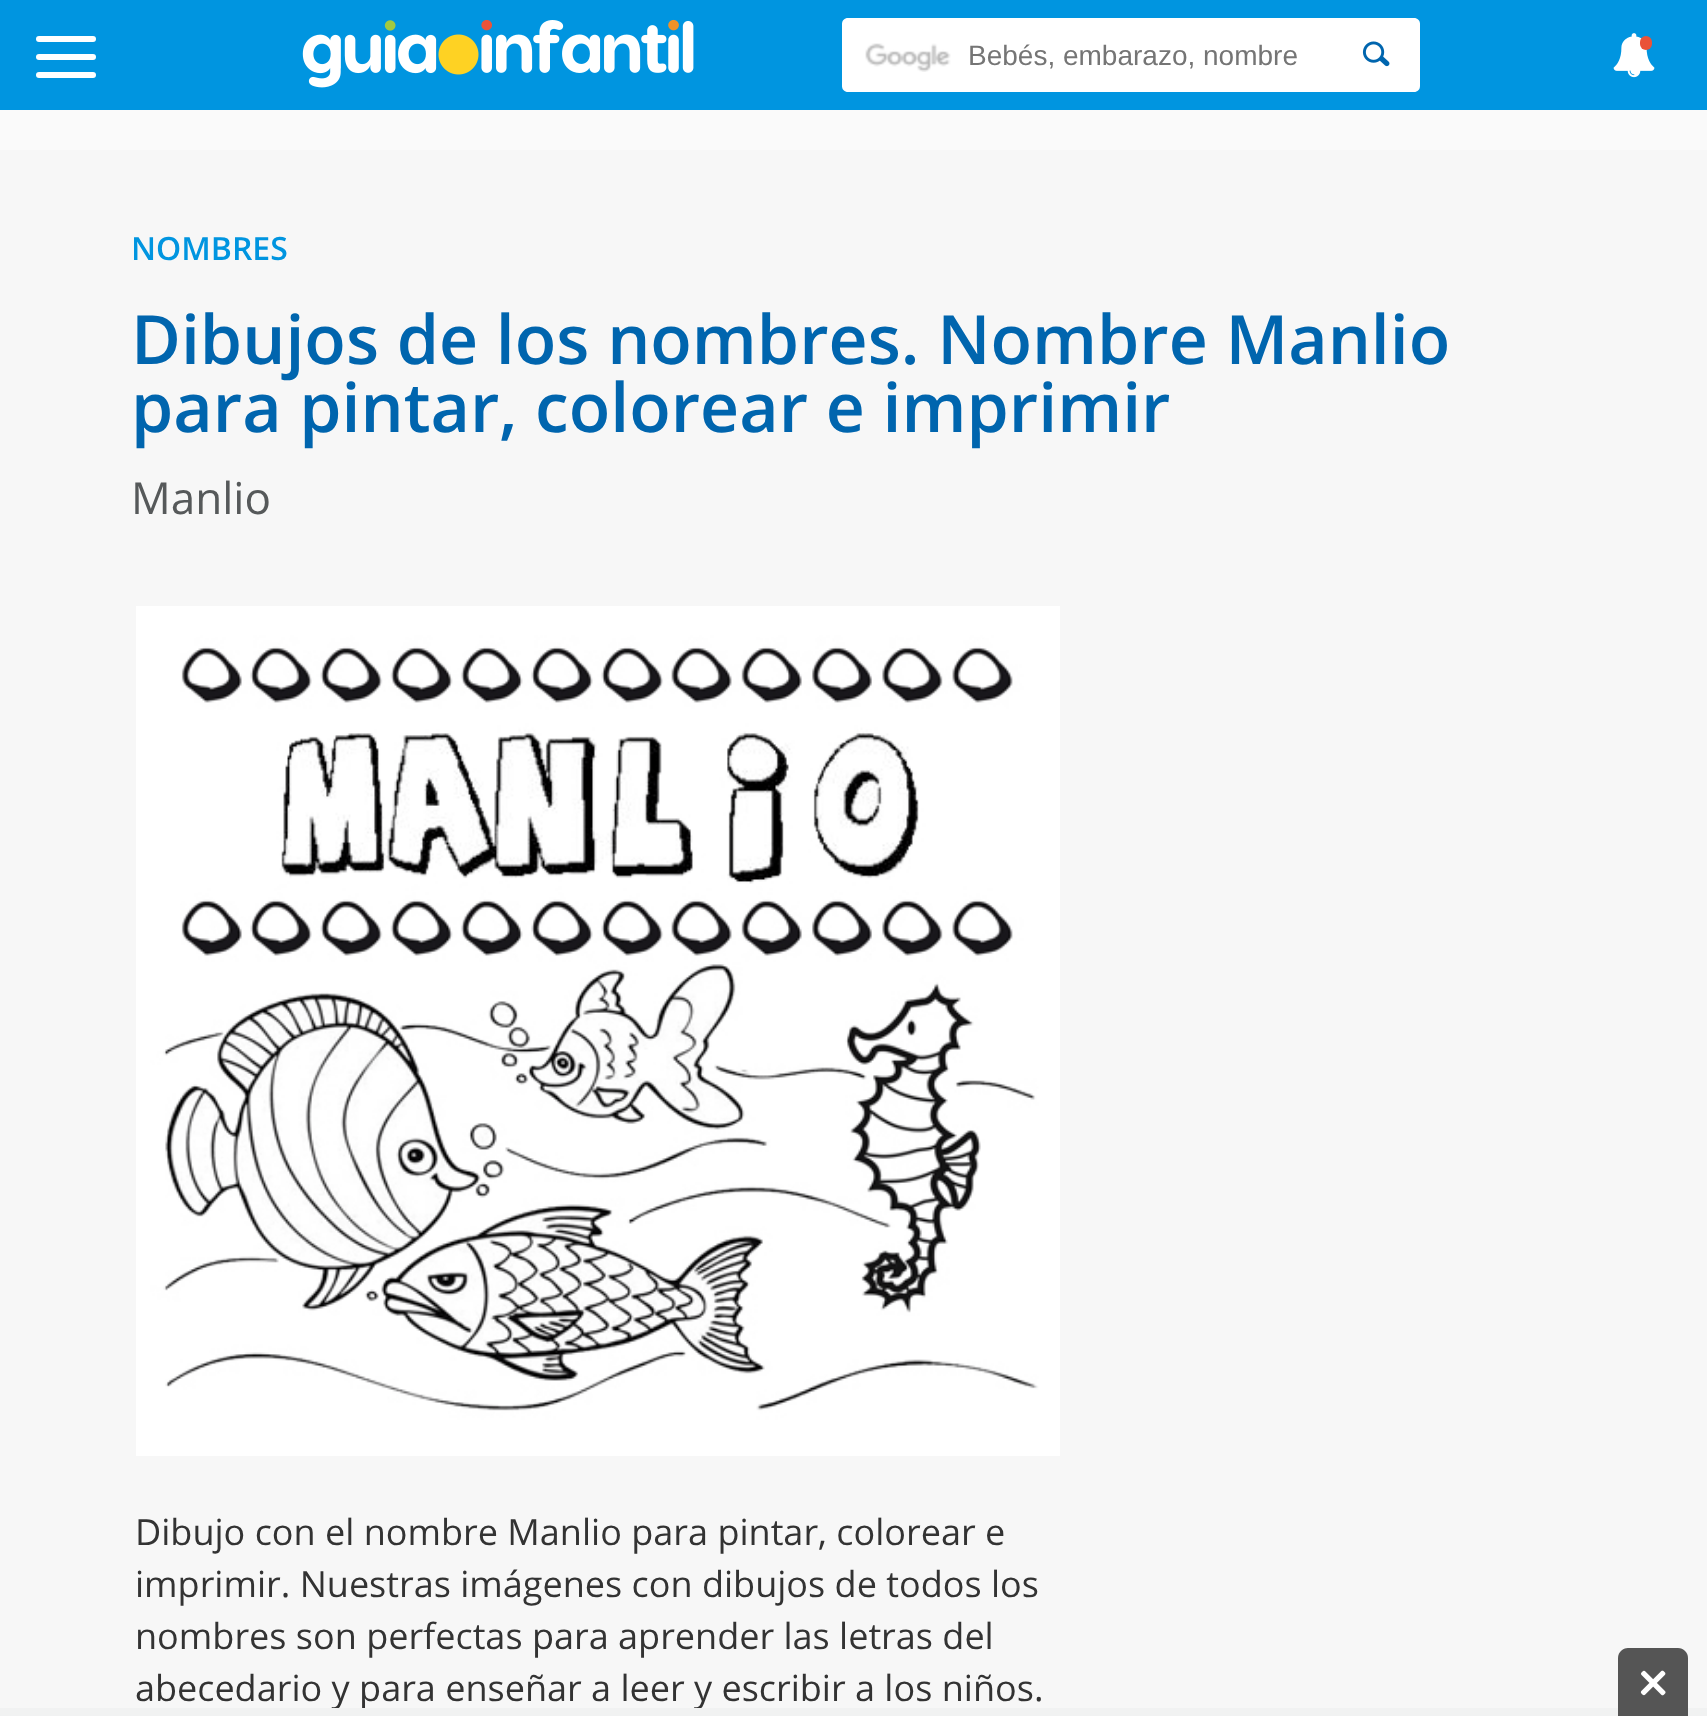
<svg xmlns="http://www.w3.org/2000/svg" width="1707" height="1716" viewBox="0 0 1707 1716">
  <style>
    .t1 { font: 28px Liberation Sans; fill: #757575; }
    .t2 { font: 600 32px Open Sans; fill: #0095e0; }
    .t3 { font: 600 68px Open Sans; fill: #0065ae; }
    .t4 { font: 44px Open Sans; fill: #56595a; }
    .t5 { font: 36px Open Sans; fill: #333; }
  </style>
  <rect width="100%" height="100%" fill="#f7f7f7"/>
  <rect x="0" y="0" width="1707" height="110" fill="#0095e0"/>
  <rect x="36" y="36" width="60" height="6" rx="3" fill="#fff"/>
  <rect x="36" y="54" width="60" height="6" rx="3" fill="#fff"/>
  <rect x="36" y="72" width="60" height="6" rx="3" fill="#fff"/>
  <image x="302" y="19" width="392" height="69" href="images/1.png"/>
  <path d="M848 18H1332V92H848C844.5 92 842 89.5 842 86V24C842 20.5 844.5 18 848 18Z" fill="#fff"/>
  <image x="865" y="43" width="86" height="29" href="images/2.png"/>
  <text x="968" y="65" class="t1">Bebés, embarazo, nombre</text>
  <path d="M1332 18H1414C1417.5 18 1420 20.5 1420 24V86C1420 89.5 1417.5 92 1414 92H1332Z" fill="#fff"/>
  <image x="1362" y="41" width="28" height="26" href="images/3.png"/>
  <image x="1613" y="33" width="42" height="45" href="images/4.png"/>
  <rect x="1640" y="36" width="12" height="14" rx="6" fill="#ea5338"/>
  <rect x="0" y="110" width="1707" height="40" fill="#fafafa"/>
  <text x="131" y="260" class="t2">NOMBRES</text>
  <text x="131" y="364" class="t3">Dibujos de los nombres. Nombre Manlio</text>
  <text x="131" y="432" class="t3">para pintar, colorear e imprimir</text>
  <text x="131" y="514" class="t4">Manlio</text>
  <image x="136" y="606" width="924" height="850" href="images/5.png"/>
  <text x="135" y="1545" class="t5">Dibujo con el nombre Manlio para pintar, colorear e</text>
  <text x="135" y="1597" class="t5">imprimir. Nuestras imágenes con dibujos de todos los</text>
  <text x="135" y="1649" class="t5">nombres son perfectas para aprender las letras del</text>
  <text x="135" y="1701" class="t5">abecedario y para enseñar a leer y escribir a los niños.</text>
  <rect x="0" y="1708" width="1707" height="8" fill="#f1f2f2"/>
  <path d="M1628 1648H1678C1683.5 1648 1688 1652.5 1688 1658V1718H1618V1658C1618 1652.5 1622.5 1648 1628 1648Z" fill="#555"/>
  <image x="1640" y="1670" width="26" height="26" href="images/6.png"/>
</svg>
